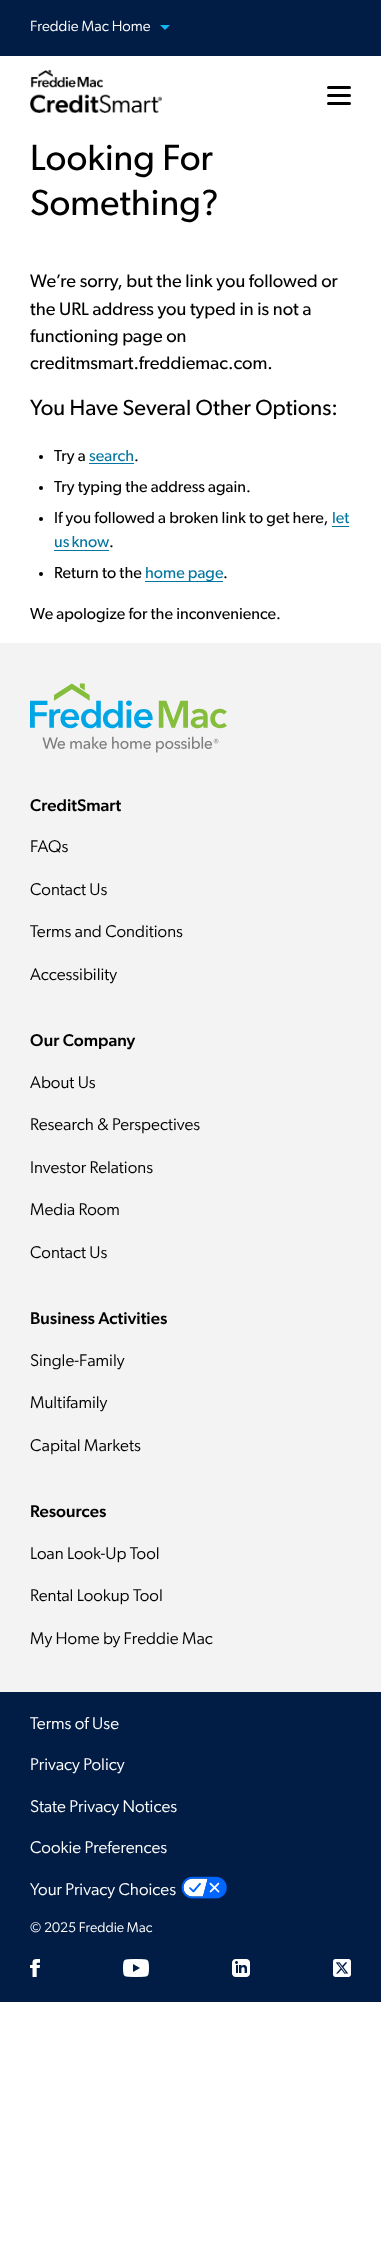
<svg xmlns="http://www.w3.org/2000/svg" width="381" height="2243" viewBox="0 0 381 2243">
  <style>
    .t1 { font: 15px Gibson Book; fill: #fff; }
    .t2 { font: 36.5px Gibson; fill: #000; }
    .t3 { font: 18.25px Gibson; fill: #000; }
    .t4 { font: 22px Gibson; fill: #000; }
    .t5 { font: 16.1px Gibson; fill: #000; }
    .t6 { font: 16.1px Gibson; fill: #0276a1; }
    .t7 { font: 500 17px Gibson; fill: #000; }
    .t8 { font: 17px Gibson Book; fill: #000; }
    .t9 { font: 17px Gibson Book; fill: #fff; }
    .t10 { font: 14px Gibson Book; fill: #fff; }
  </style>
  <rect width="100%" height="100%" fill="#fff"/>
  <rect x="0" y="0" width="381" height="56" fill="#021d45"/>
  <text x="30" y="31" class="t1">Freddie Mac Home</text>
  <path d="M160 25H170L165 30Z" fill="#11b6f1"/>
  <image x="30" y="70" width="132" height="43" href="images/1.png"/>
  <rect x="327" y="86" width="24" height="3" rx="1.5" fill="#000"/>
  <rect x="327" y="94" width="24" height="3" rx="1.5" fill="#000"/>
  <rect x="327" y="102" width="24" height="3" rx="1.5" fill="#000"/>
  <text x="30" y="170" class="t2">Looking For</text>
  <text x="30" y="215" class="t2">Something?</text>
  <text x="30" y="287" class="t3">We’re sorry, but the link you followed or</text>
  <text x="30" y="315" class="t3">the URL address you typed in is not a</text>
  <text x="30" y="342" class="t3">functioning page on</text>
  <text x="30" y="369" class="t3">creditmsmart.freddiemac.com.</text>
  <text x="30" y="415" class="t4">You Have Several Other Options:</text>
  <circle cx="41" cy="457" r="2" fill="#000"/>
  <text x="54" y="461" class="t5">Try a</text>
  <text x="89" y="461" class="t6">search</text>
  <rect x="89" y="463" width="45" height="1" fill="#0276a1"/>
  <text x="134" y="461" class="t5">.</text>
  <circle cx="41" cy="488" r="2" fill="#000"/>
  <text x="54" y="492" class="t5">Try typing the address again.</text>
  <circle cx="41" cy="519" r="2" fill="#000"/>
  <text x="54" y="523" class="t5">If you followed a broken link to get here,</text>
  <text x="332" y="523" class="t6">let</text>
  <rect x="332" y="526" width="17" height="1" fill="#0276a1"/>
  <text x="54" y="547" word-spacing="-1" class="t6">us know</text>
  <rect x="54" y="550" width="55" height="1" fill="#0276a1"/>
  <text x="109" y="547" class="t5">.</text>
  <circle cx="41" cy="574" r="2" fill="#000"/>
  <text x="54" y="578" class="t5">Return to the</text>
  <rect x="145" y="581" width="78" height="1" fill="#0276a1"/>
  <text x="145" y="578" class="t6">home page</text>
  <text x="223" y="578" class="t5">.</text>
  <text x="30" y="619" class="t5">We apologize for the inconvenience.</text>
  <rect x="0" y="643" width="381" height="1049" fill="#f3f3f3"/>
  <image x="30" y="683" width="197" height="70" href="images/2.png"/>
  <text x="30" y="811" class="t7">CreditSmart</text>
  <text x="30" y="852" class="t8">FAQs</text>
  <text x="30" y="895" class="t8">Contact Us</text>
  <text x="30" y="937" class="t8">Terms and Conditions</text>
  <text x="30" y="980" class="t8">Accessibility</text>
  <text x="30" y="1046" class="t7">Our Company</text>
  <text x="30" y="1088" class="t8">About Us</text>
  <text x="30" y="1130" class="t8">Research &amp; Perspectives</text>
  <text x="30" y="1173" class="t8">Investor Relations</text>
  <text x="30" y="1215" class="t8">Media Room</text>
  <text x="30" y="1258" class="t8">Contact Us</text>
  <text x="30" y="1324" class="t7">Business Activities</text>
  <text x="30" y="1366" class="t8">Single-Family</text>
  <text x="30" y="1408" class="t8">Multifamily</text>
  <text x="30" y="1451" class="t8">Capital Markets</text>
  <text x="30" y="1517" class="t7">Resources</text>
  <text x="30" y="1559" class="t8">Loan Look-Up Tool</text>
  <text x="30" y="1601" class="t8">Rental Lookup Tool</text>
  <text x="30" y="1644" class="t8">My Home by Freddie Mac</text>
  <rect x="0" y="1692" width="381" height="310" fill="#021d45"/>
  <text x="30" y="1729" class="t9">Terms of Use</text>
  <text x="30" y="1770" class="t9">Privacy Policy</text>
  <text x="30" y="1812" class="t9">State Privacy Notices</text>
  <text x="30" y="1853" class="t9">Cookie Preferences</text>
  <text x="30" y="1895" class="t9">Your Privacy Choices</text>
  <image x="181" y="1876" width="46" height="23" href="images/3.png"/>
  <text x="30" y="1932" class="t10">© 2025 Freddie Mac</text>
  <image x="30" y="1959" width="10" height="18" href="images/4.png"/>
  <image x="123" y="1959" width="26" height="18" href="images/5.png"/>
  <image x="232" y="1959" width="18" height="18" href="images/6.png"/>
  <image x="333" y="1959" width="18" height="18" href="images/7.png"/>
</svg>
